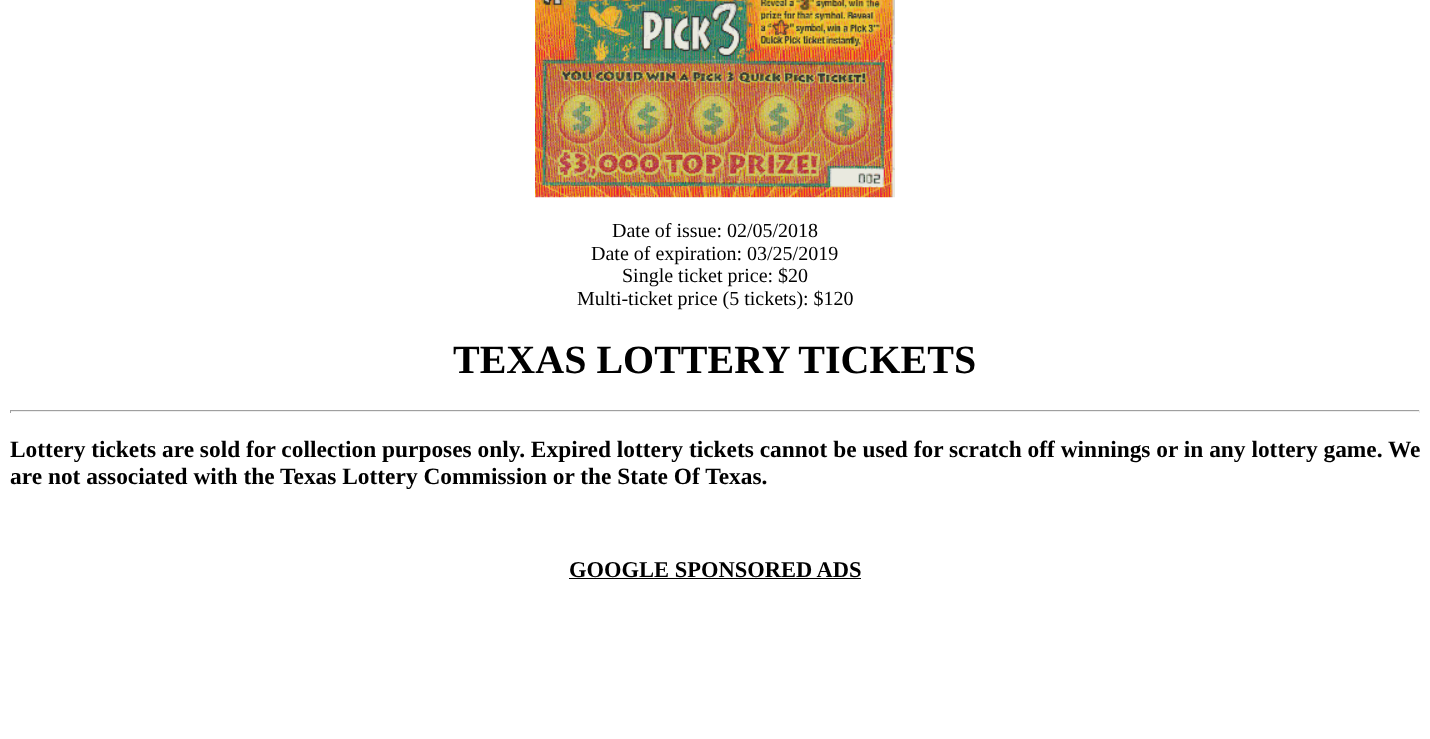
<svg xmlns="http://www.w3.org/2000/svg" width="1430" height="739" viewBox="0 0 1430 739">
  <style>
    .t1 { font: 20px Liberation Serif; fill: #000; }
    .t2 { font: bold 40px Liberation Serif; fill: #000; }
    .t3 { font: bold 23.4px Liberation Serif; fill: #000; }
    .t4 { font: bold 22.5px Liberation Serif; fill: #000; }
  </style>
  <rect width="100%" height="100%" fill="#fff"/>
  <image x="535" y="0" width="360" height="198" href="images/1.png"/>
  <text x="612" y="237" class="t1">Date of issue: 02/05/2018</text>
  <text x="591" y="260" class="t1">Date of expiration: 03/25/2019</text>
  <text x="622" y="282" class="t1">Single ticket price: $20</text>
  <text x="577" y="305" class="t1">Multi-ticket price (5 tickets): $120</text>
  <text x="453" y="373" class="t2">TEXAS LOTTERY TICKETS</text>
  <rect x="10" y="410" width="1410" height="1" fill="#9f9f9f"/>
  <rect x="1419" y="410" width="1" height="3" fill="#eee"/>
  <rect x="10" y="411" width="1410" height="1" fill="#eee"/>
  <rect x="10" y="410" width="1" height="3" fill="#9f9f9f"/>
  <text x="10" y="457" class="t3">Lottery tickets are sold for collection purposes only. Expired lottery tickets cannot be used for scratch off winnings or in any lottery game. We</text>
  <text x="10" y="484" class="t3">are not associated with the Texas Lottery Commission or the State Of Texas.</text>
  <text x="569" y="577" class="t4">GOOGLE SPONSORED ADS</text>
  <rect x="569" y="578" width="292" height="1" fill="#000"/>
</svg>
